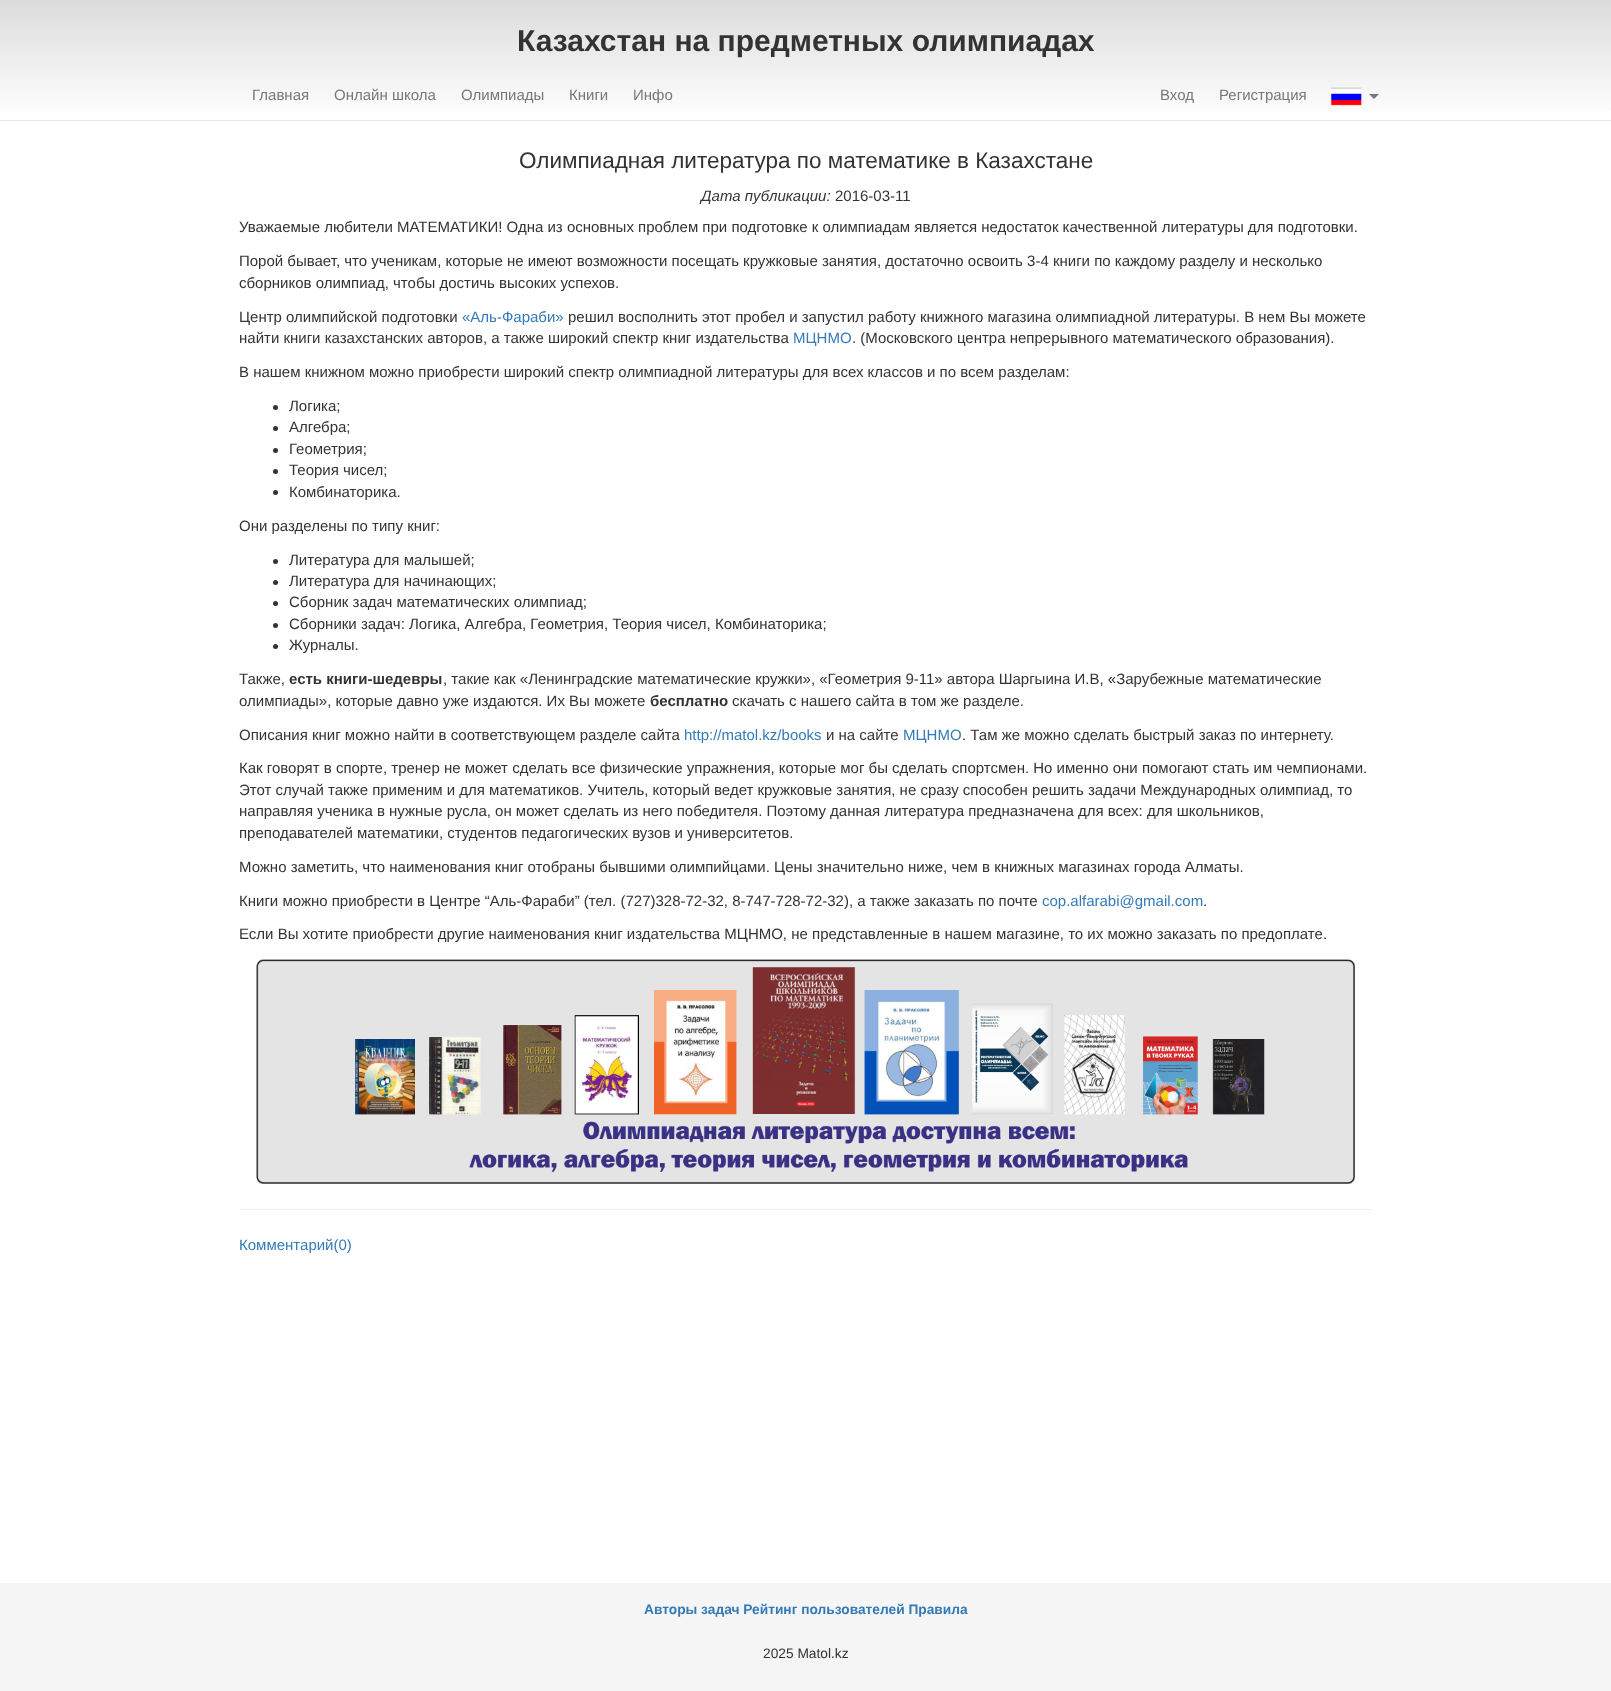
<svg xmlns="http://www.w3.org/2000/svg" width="1611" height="1691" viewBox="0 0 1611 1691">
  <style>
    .t1 { font: bold 30px Liberation Sans; fill: #333; }
    .t2 { font: 15px Liberation Sans; fill: #777; }
    .t3 { font: 22.5px Liberation Sans; fill: #333; }
    .t4 { font: italic 15px Liberation Sans; fill: #333; }
    .t5 { font: 15px Liberation Sans; fill: #333; }
    .t6 { font: 15px Liberation Sans; fill: #337ab7; }
    .t7 { font: bold 15px Liberation Sans; fill: #333; }
    .t8 { font: bold 13.75px Liberation Sans; fill: #337ab7; }
    .t9 { font: 13.75px Liberation Sans; fill: #333; }
  </style>
  <defs>
    <linearGradient id="g1" gradientUnits="userSpaceOnUse" x1="806" y1="0" x2="806" y2="120"><stop offset="0" stop-color="#dcdcdc"/><stop offset="1" stop-color="#fff"/></linearGradient>
  </defs>
  <rect width="100%" height="100%" fill="#fff"/>
  <rect x="0" y="0" width="1611" height="111" fill="url(#g1)"/>
  <rect x="0" y="120" width="1611" height="1" fill="#e7e7e7"/>
  <text x="517" y="51" class="t1">Казахстан на предметных олимпиадах</text>
  <text x="252" y="100" class="t2">Главная</text>
  <text x="334" y="100" class="t2">Онлайн школа</text>
  <text x="461" y="100" class="t2">Олимпиады</text>
  <text x="569" y="100" class="t2">Книги</text>
  <text x="633" y="100" class="t2">Инфо</text>
  <text x="1160" y="100" class="t2">Вход</text>
  <text x="1219" y="100" class="t2">Регистрация</text>
  <image x="1331" y="87" width="31" height="19" href="images/1.png"/>
  <path d="M1369 94H1379L1374 99Z" fill="#777"/>
  <text x="519" y="168" class="t3">Олимпиадная литература по математике в Казахстане</text>
  <text x="701" y="201" class="t4">Дата публикации:</text>
  <text x="835" y="201" class="t5">2016-03-11</text>
  <text x="239" y="232" class="t5">Уважаемые любители МАТЕМАТИКИ! Одна из основных проблем при подготовке к олимпиадам является недостаток качественной литературы для подготовки.</text>
  <text x="239" y="266" class="t5">Порой бывает, что ученикам, которые не имеют возможности посещать кружковые занятия, достаточно освоить 3-4 книги по каждому разделу и несколько</text>
  <text x="239" y="288" class="t5">сборников олимпиад, чтобы достичь высоких успехов.</text>
  <text x="239" y="322" class="t5">Центр олимпийской подготовки</text>
  <text x="462" y="322" class="t6">«Аль-Фараби»</text>
  <text x="568" y="322" class="t5">решил восполнить этот пробел и запустил работу книжного магазина олимпиадной литературы. В нем Вы можете</text>
  <text x="239" y="343" class="t5">найти книги казахстанских авторов, а также широкий спектр книг издательства</text>
  <text x="793" y="343" class="t6">МЦНМО</text>
  <text x="852" y="343" class="t5">. (Московского центра непрерывного математического образования).</text>
  <text x="239" y="377" class="t5">В нашем книжном можно приобрести широкий спектр олимпиадной литературы для всех классов и по всем разделам:</text>
  <circle cx="275.5" cy="407.5" r="2.5" fill="#333"/>
  <text x="289" y="411" class="t5">Логика;</text>
  <circle cx="275.5" cy="428.5" r="2.5" fill="#333"/>
  <text x="289" y="432" class="t5">Алгебра;</text>
  <circle cx="275.5" cy="450.5" r="2.5" fill="#333"/>
  <text x="289" y="454" class="t5">Геометрия;</text>
  <circle cx="275.5" cy="471.5" r="2.5" fill="#333"/>
  <text x="289" y="475" class="t5">Теория чисел;</text>
  <circle cx="275.5" cy="492.5" r="2.5" fill="#333"/>
  <text x="289" y="497" class="t5">Комбинаторика.</text>
  <text x="239" y="531" class="t5">Они разделены по типу книг:</text>
  <circle cx="275.5" cy="561.5" r="2.5" fill="#333"/>
  <text x="289" y="565" class="t5">Литература для малышей;</text>
  <circle cx="275.5" cy="582.5" r="2.5" fill="#333"/>
  <text x="289" y="586" class="t5">Литература для начинающих;</text>
  <circle cx="275.5" cy="603.5" r="2.5" fill="#333"/>
  <text x="289" y="607" class="t5">Сборник задач математических олимпиад;</text>
  <circle cx="275.5" cy="625.5" r="2.5" fill="#333"/>
  <text x="289" y="629" class="t5">Сборники задач: Логика, Алгебра, Геометрия, Теория чисел, Комбинаторика;</text>
  <circle cx="275.5" cy="646.5" r="2.5" fill="#333"/>
  <text x="289" y="650" class="t5">Журналы.</text>
  <text x="239" y="684" class="t5">Также,</text>
  <text x="289" y="684" class="t7">есть книги-шедевры</text>
  <text x="443" y="684" class="t5">, такие как «Ленинградские математические кружки», «Геометрия 9-11» автора Шаргыина И.В, «Зарубежные математические</text>
  <text x="239" y="706" class="t5">олимпиады», которые давно уже издаются. Их Вы можете</text>
  <text x="650" y="706" class="t7">бесплатно</text>
  <text x="732" y="706" class="t5">скачать с нашего сайта в том же разделе.</text>
  <text x="239" y="740" class="t5">Описания книг можно найти в соответствующем разделе сайта</text>
  <text x="684" y="740" class="t6">http://matol.kz/books</text>
  <text x="826" y="740" class="t5">и на сайте</text>
  <text x="903" y="740" class="t6">МЦНМО</text>
  <text x="962" y="740" class="t5">. Там же можно сделать быстрый заказ по интернету.</text>
  <text x="239" y="773" class="t5">Как говорят в спорте, тренер не может сделать все физические упражнения, которые мог бы сделать спортсмен. Но именно они помогают стать им чемпионами.</text>
  <text x="239" y="795" class="t5">Этот случай также применим и для математиков. Учитель, который ведет кружковые занятия, не сразу способен решить задачи Международных олимпиад, то</text>
  <text x="239" y="816" class="t5">направляя ученика в нужные русла, он может сделать из него победителя. Поэтому данная литература предназначена для всех: для школьников,</text>
  <text x="239" y="838" class="t5">преподавателей математики, студентов педагогических вузов и университетов.</text>
  <text x="239" y="872" class="t5">Можно заметить, что наименования книг отобраны бывшими олимпийцами. Цены значительно ниже, чем в книжных магазинах города Алматы.</text>
  <text x="239" y="906" class="t5">Книги можно приобрести в Центре “Аль-Фараби” (тел. (727)328-72-32, 8-747-728-72-32), а также заказать по почте</text>
  <text x="1042" y="906" class="t6">cop.alfarabi@gmail.com</text>
  <text x="1203" y="906" class="t5">.</text>
  <text x="239" y="939" class="t5">Если Вы хотите приобрести другие наименования книг издательства МЦНМО, не представленные в нашем магазине, то их можно заказать по предоплате.</text>
  <image x="256" y="959" width="1099" height="225" href="images/2.png"/>
  <rect x="240" y="1209" width="1133" height="1" fill="#eee"/>
  <text x="239" y="1250" class="t6">Комментарий(0)</text>
  <rect x="0" y="1583" width="1611" height="108" fill="#f5f5f5"/>
  <text x="644" y="1614" class="t8">Авторы задач Рейтинг пользователей Правила</text>
  <text x="763" y="1658" class="t9">2025 Matol.kz</text>
</svg>
